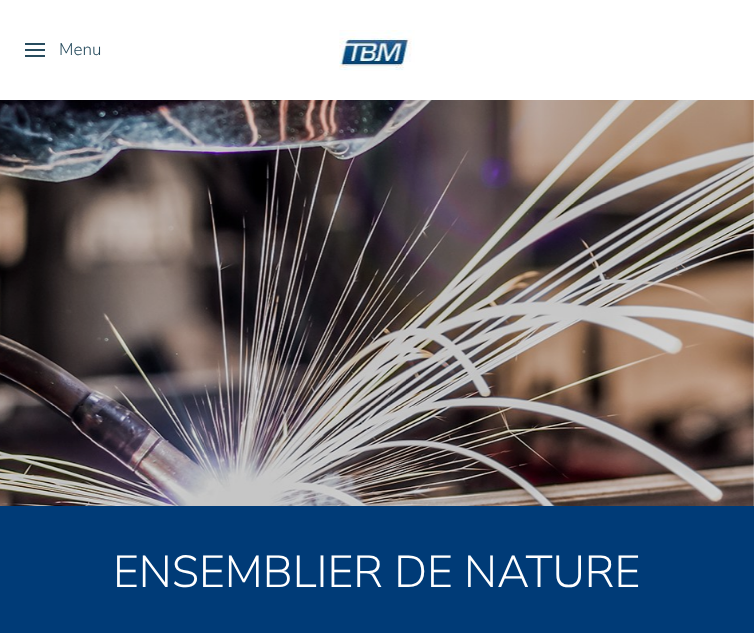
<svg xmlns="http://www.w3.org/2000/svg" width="754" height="633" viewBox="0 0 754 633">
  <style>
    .t1 { font: 200 17px Nunito Sans; fill: #274c5e; }
    .t2 { font: 200 44.75px Nunito Sans; fill: #fff; }
  </style>
  <rect width="100%" height="100%" fill="#fff"/>
  <rect x="25" y="43" width="20" height="2" fill="#274c5e"/>
  <rect x="25" y="49" width="20" height="2" fill="#274c5e"/>
  <rect x="25" y="55" width="20" height="2" fill="#274c5e"/>
  <text x="59" y="55" class="t1">Menu</text>
  <image x="339" y="30" width="76" height="41" href="images/1.png"/>
  <image x="0" y="100" width="754" height="406" href="images/2.png"/>
  <rect x="0" y="506" width="754" height="127" fill="#003b77"/>
  <text x="113" y="587" class="t2">ENSEMBLIER DE NATURE</text>
</svg>
